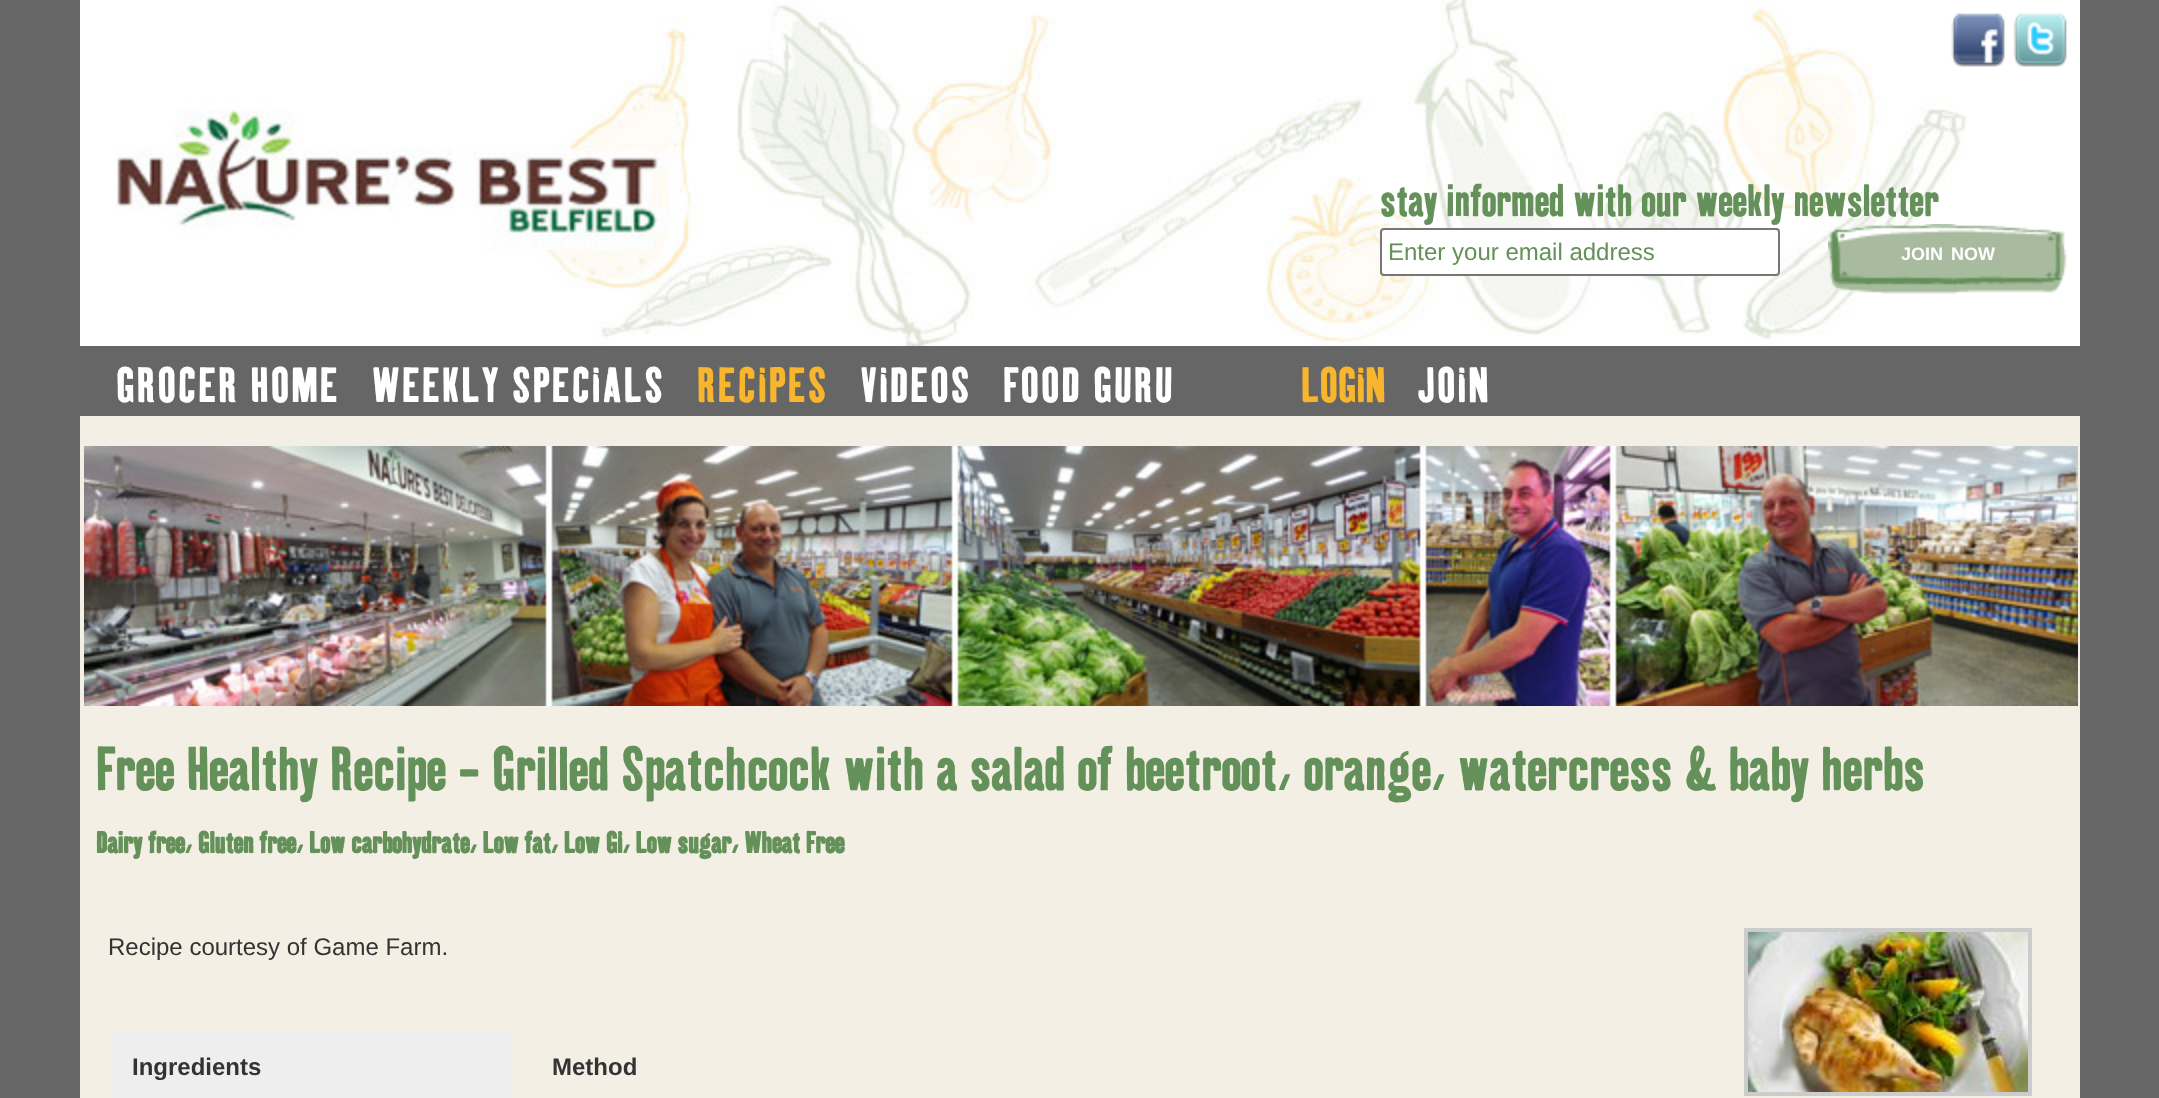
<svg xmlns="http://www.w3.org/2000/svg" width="2159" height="1098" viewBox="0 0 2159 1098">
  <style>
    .t1 { font: 44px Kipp; fill: #649059; }
    .t2 { font: 24px Liberation Sans; fill: #649059; }
    .t3 { font: bold 18px Liberation Sans; fill: #fff; }
    .t4 { font: 48px Kipp; letter-spacing: 2px; fill: #fff; }
    .t5 { font: 48px Kipp; letter-spacing: 2px; fill: #f8b62e; }
    .t6 { font: 48px Kipp; fill: #f8b62e; }
    .t7 { font: 60px Kipp; fill: #649059; }
    .t8 { font: bold 29.3px Kipp; fill: #649059; }
    .t9 { font: 24px Liberation Sans; fill: #333; }
    .t10 { font: bold 24px Liberation Sans; fill: #333; }
  </style>
  <rect width="100%" height="100%" fill="#666"/>
  <rect x="80" y="0" width="2000" height="346" fill="#fff"/>
  <image x="115" y="0" width="1852" height="346" href="images/1.png"/>
  <image x="1951" y="13" width="54" height="54" href="images/2.png"/>
  <image x="2013" y="13" width="54" height="54" href="images/3.png"/>
  <text x="1380" y="216" class="t1">stay informed with our weekly newsletter</text>
  <rect x="1381" y="229" width="398" height="46" rx="3" fill="#fff" stroke="#767676" stroke-width="2"/>
  <text x="1388" y="260" class="t2">Enter your email address</text>
  <image x="1828" y="224" width="239" height="70" href="images/4.png"/>
  <text x="1901" y="260" class="t3">JOIN</text>
  <text x="1951" y="260" class="t3">NOW</text>
  <text x="116" y="402" class="t4">GROCER HOME</text>
  <text x="372" y="402" class="t4">WEEKLY SPECIALS</text>
  <text x="697" y="402" class="t5">RECIPES</text>
  <text x="860" y="402" class="t4">VIDEOS</text>
  <text x="1003" y="402" class="t4">FOOD GURU</text>
  <text x="1301" y="402" class="t6">LOGIN</text>
  <text x="1418" y="402" class="t4">JOIN</text>
  <rect x="80" y="416" width="2000" height="682" fill="#f3efe4"/>
  <image x="84" y="446" width="1994" height="260" href="images/5.png"/>
  <text x="96" y="790" class="t7">Free Healthy Recipe - Grilled Spatchcock with a salad of beetroot, orange, watercress &amp; baby herbs</text>
  <text x="96" y="853" class="t8">Dairy free, Gluten free, Low carbohydrate, Low fat, Low GI, Low sugar, Wheat Free</text>
  <text x="108" y="955" class="t9">Recipe courtesy of Game Farm.</text>
  <rect x="1746" y="930" width="284" height="164" fill="none" stroke="#ccc" stroke-width="4"/>
  <image x="1748" y="932" width="280" height="160" href="images/6.png"/>
  <rect x="112" y="1032" width="400" height="66" fill="#eee"/>
  <text x="132" y="1075" class="t10">Ingredients</text>
  <text x="552" y="1075" class="t10">Method</text>
</svg>
